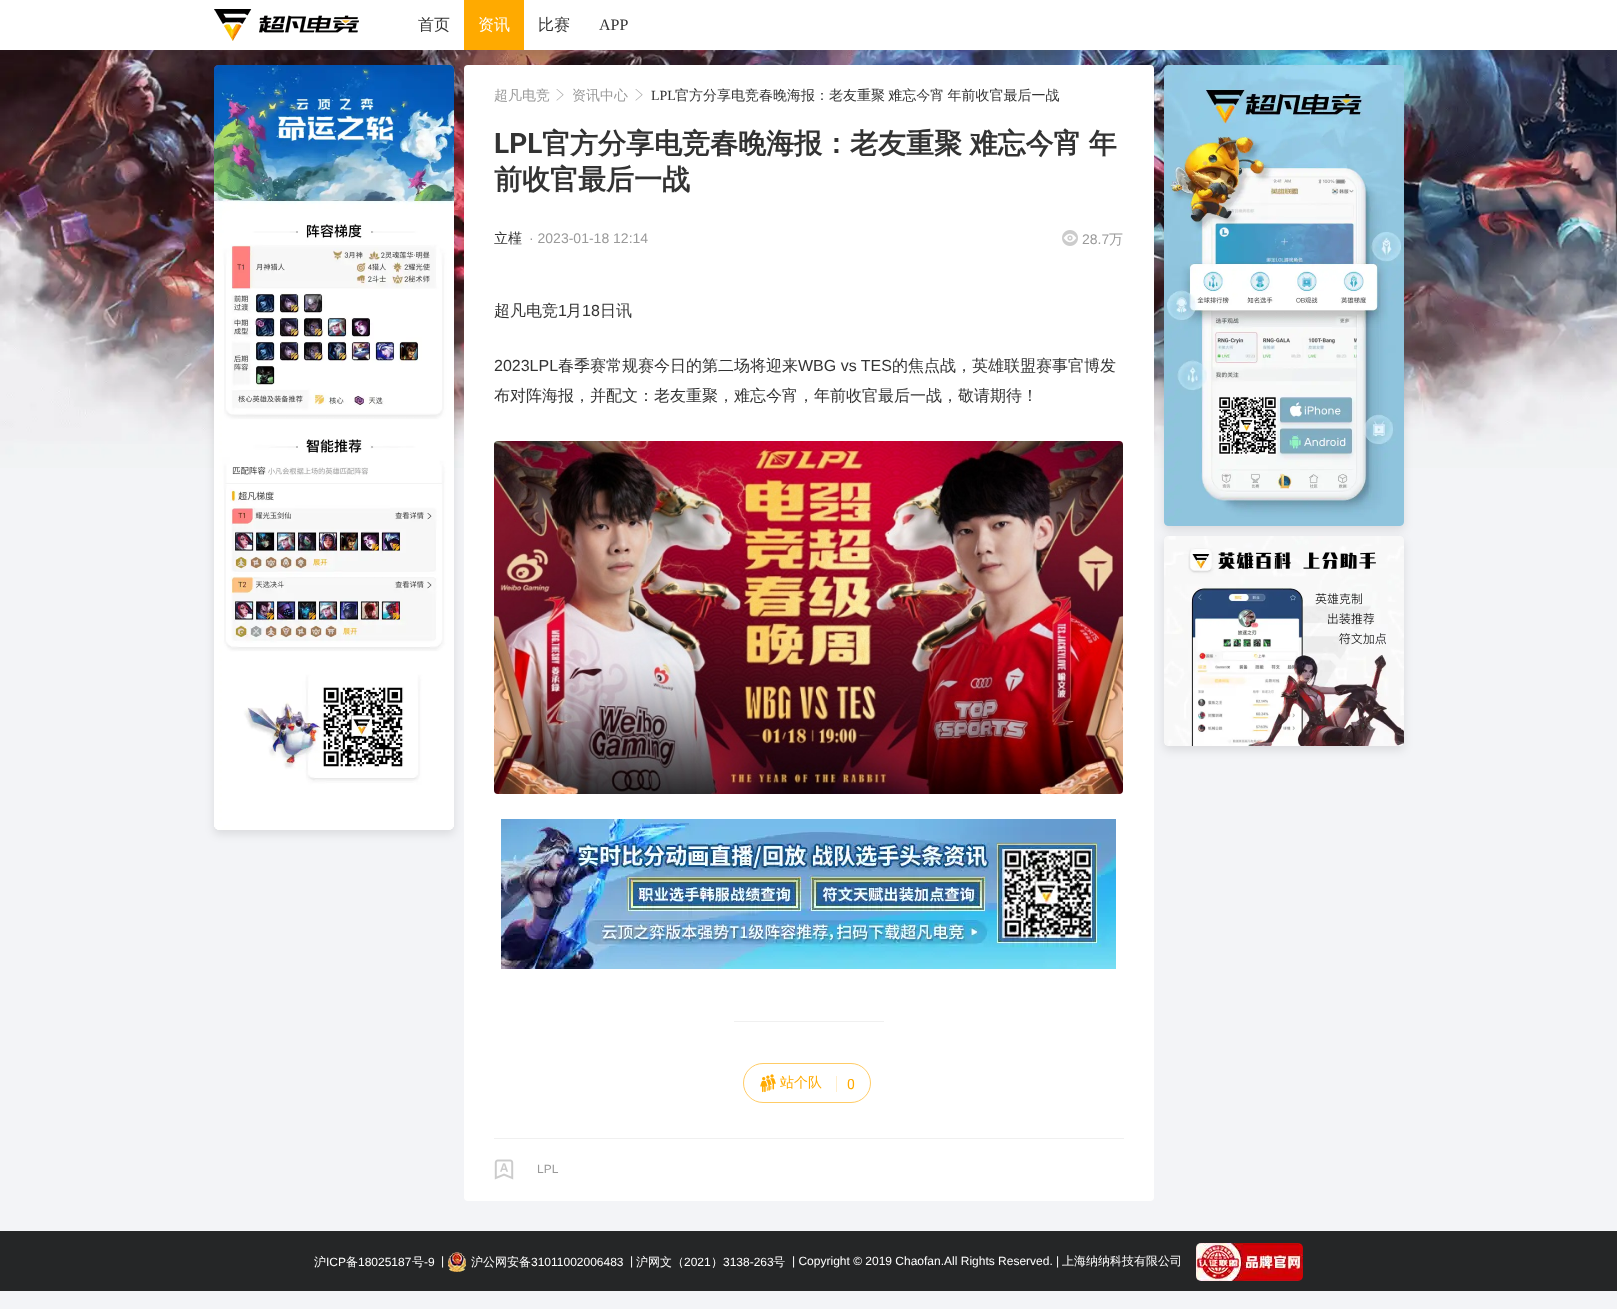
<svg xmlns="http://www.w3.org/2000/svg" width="1617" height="1309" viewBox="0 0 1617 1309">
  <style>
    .t1 { font: 500 16px WenQuanYi Zen Hei; fill: #333; }
    .t2 { font: 500 16px WenQuanYi Zen Hei; fill: #fff; }
    .t3 { font: 16px Liberation Serif; fill: #333; }
    .t4 { font: 500 14px WenQuanYi Zen Hei; fill: #999; }
    .t5 { font: 14px Liberation Serif; fill: #333; }
    .t6 { font: 500 14px WenQuanYi Zen Hei; fill: #333; }
    .t7 { font: bold 28px Roboto; fill: #333; }
    .t8 { font: bold 28px WenQuanYi Zen Hei; fill: #333; }
    .t9 { font: 14px Liberation Sans; fill: #999; }
    .t10 { font: 16px Liberation Sans; fill: #333; }
    .t11 { font: 500 14px WenQuanYi Zen Hei; fill: #fa0; }
    .t12 { font: 14px Roboto; fill: #fa0; }
    .t13 { font: 12px Liberation Sans; fill: #999; }
    .t14 { font: 500 12px WenQuanYi Zen Hei; fill: #fff; }
    .t15 { font: 12px Liberation Sans; fill: #fff; }
  </style>
  <defs>
    <clipPath id="clip1"><rect x="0" y="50" width="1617" height="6"/></clipPath>
  </defs>
  <rect width="100%" height="100%" fill="#f3f4f7"/>
  <rect x="0" y="0" width="1617" height="50" fill="#fff"/>
  <image x="0" y="50" width="1617" height="418" href="images/2.png"/>
  <rect x="214" y="69" width="240" height="765" rx="4" fill="#0000001a" filter="blur(5px)"/>
  <image x="214" y="65" width="240" height="765" href="images/3.png"/>
  <rect x="464" y="65" width="690" height="1136" rx="4" fill="#fff"/>
  <rect x="1164" y="69" width="240" height="461" rx="4" fill="#0000001a" filter="blur(5px)"/>
  <image x="1164" y="65" width="240" height="461" href="images/10.png"/>
  <g clip-path="url(#clip1)">
    <rect x="0" y="2" width="1617" height="50" fill="#1b1e201a" filter="blur(5px)"/>
  </g>
  <image x="214" y="9" width="145" height="32" href="images/1.png"/>
  <text x="418" y="30" class="t1">首页</text>
  <rect x="464" y="0" width="60" height="50" fill="#fa0"/>
  <text x="478" y="30" class="t2">资讯</text>
  <text x="538" y="30" class="t1">比赛</text>
  <text x="599" y="30" class="t3">APP</text>
  <text x="494" y="100" class="t4">超凡电竞</text>
  <image x="556" y="89" width="8" height="12" href="images/4.png"/>
  <text x="572" y="100" class="t4">资讯中心</text>
  <image x="635" y="89" width="8" height="12" href="images/4.png"/>
  <text x="651" y="100" class="t5">LPL</text>
  <text x="675" y="100" word-spacing="-1" class="t6">官方分享电竞春晚海报：老友重聚 难忘今宵 年前收官最后一战</text>
  <text x="494" y="153" class="t7">LPL</text>
  <text x="542" y="153" word-spacing="-1" class="t8">官方分享电竞春晚海报：老友重聚 难忘今宵 年</text>
  <text x="494" y="189" class="t8">前收官最后一战</text>
  <text x="494" y="243" class="t6">立槿</text>
  <text x="529" y="243" class="t9">· 2023-01-18 12:14</text>
  <image x="1062" y="230" width="16" height="16" href="images/5.png"/>
  <text x="1082" y="244" class="t9">28.7</text>
  <text x="1109" y="244" class="t4">万</text>
  <text x="494" y="316" class="t1">超凡电竞</text>
  <text x="558" y="316" class="t10">1</text>
  <text x="566" y="316" class="t1">月</text>
  <text x="582" y="316" class="t10">18</text>
  <text x="600" y="316" class="t1">日讯</text>
  <text x="494" y="371" class="t10">2023LPL</text>
  <text x="558" y="371" class="t1">春季赛常规赛今日的第二场将迎来</text>
  <text x="798" y="371" class="t10">WBG vs TES</text>
  <text x="892" y="371" class="t1">的焦点战，英雄联盟赛事官博发</text>
  <text x="494" y="401" class="t1">布对阵海报，并配文：老友重聚，难忘今宵，年前收官最后一战，敬请期待！</text>
  <image x="494" y="441" width="629" height="353" href="images/6.png"/>
  <image x="501" y="819" width="615" height="150" href="images/7.png"/>
  <rect x="734" y="1021" width="150" height="1" fill="#f0f0f0"/>
  <rect x="743.5" y="1063.5" width="127" height="39" rx="19.5" fill="none" stroke="#fc6"/>
  <image x="760" y="1074" width="16" height="19" href="images/8.png"/>
  <text x="780" y="1087" class="t11">站个队</text>
  <rect x="836" y="1076" width="1" height="16" fill="#fec"/>
  <text x="847" y="1089" class="t12">0</text>
  <rect x="494" y="1138" width="630" height="1" fill="#f0f0f0"/>
  <image x="494" y="1159" width="20" height="21" href="images/9.png"/>
  <text x="537" y="1173" class="t13">LPL</text>
  <rect x="1164" y="540" width="240" height="210" rx="4" fill="#0000001a" filter="blur(5px)"/>
  <image x="1164" y="536" width="240" height="210" href="images/11.png"/>
  <rect x="0" y="1231" width="1617" height="60" fill="#252627"/>
  <text x="314" y="1266" class="t14">沪</text>
  <text x="326" y="1266" class="t15">ICP</text>
  <text x="346" y="1266" class="t14">备</text>
  <text x="358" y="1266" class="t15">18025187</text>
  <text x="412" y="1266" class="t14">号</text>
  <text x="424" y="1266" class="t15">-9</text>
  <text x="441" y="1265" class="t15">|</text>
  <image x="448" y="1252" width="18" height="20" href="images/12.png"/>
  <text x="471" y="1266" class="t14">沪公网安备</text>
  <text x="531" y="1266" class="t15">31011002006483</text>
  <text x="630" y="1265" class="t15">|</text>
  <text x="636" y="1266" class="t14">沪网文（</text>
  <text x="684" y="1266" class="t15">2021</text>
  <text x="711" y="1266" class="t14">）</text>
  <text x="723" y="1266" class="t15">3138-263</text>
  <text x="773" y="1266" class="t14">号</text>
  <text x="792" y="1265" class="t15">| Copyright © 2019 Chaofan.All Rights Reserved. |</text>
  <text x="1062" y="1265" class="t14">上海纳纳科技有限公司</text>
  <image x="1196" y="1243" width="107" height="38" href="images/13.png"/>
</svg>
